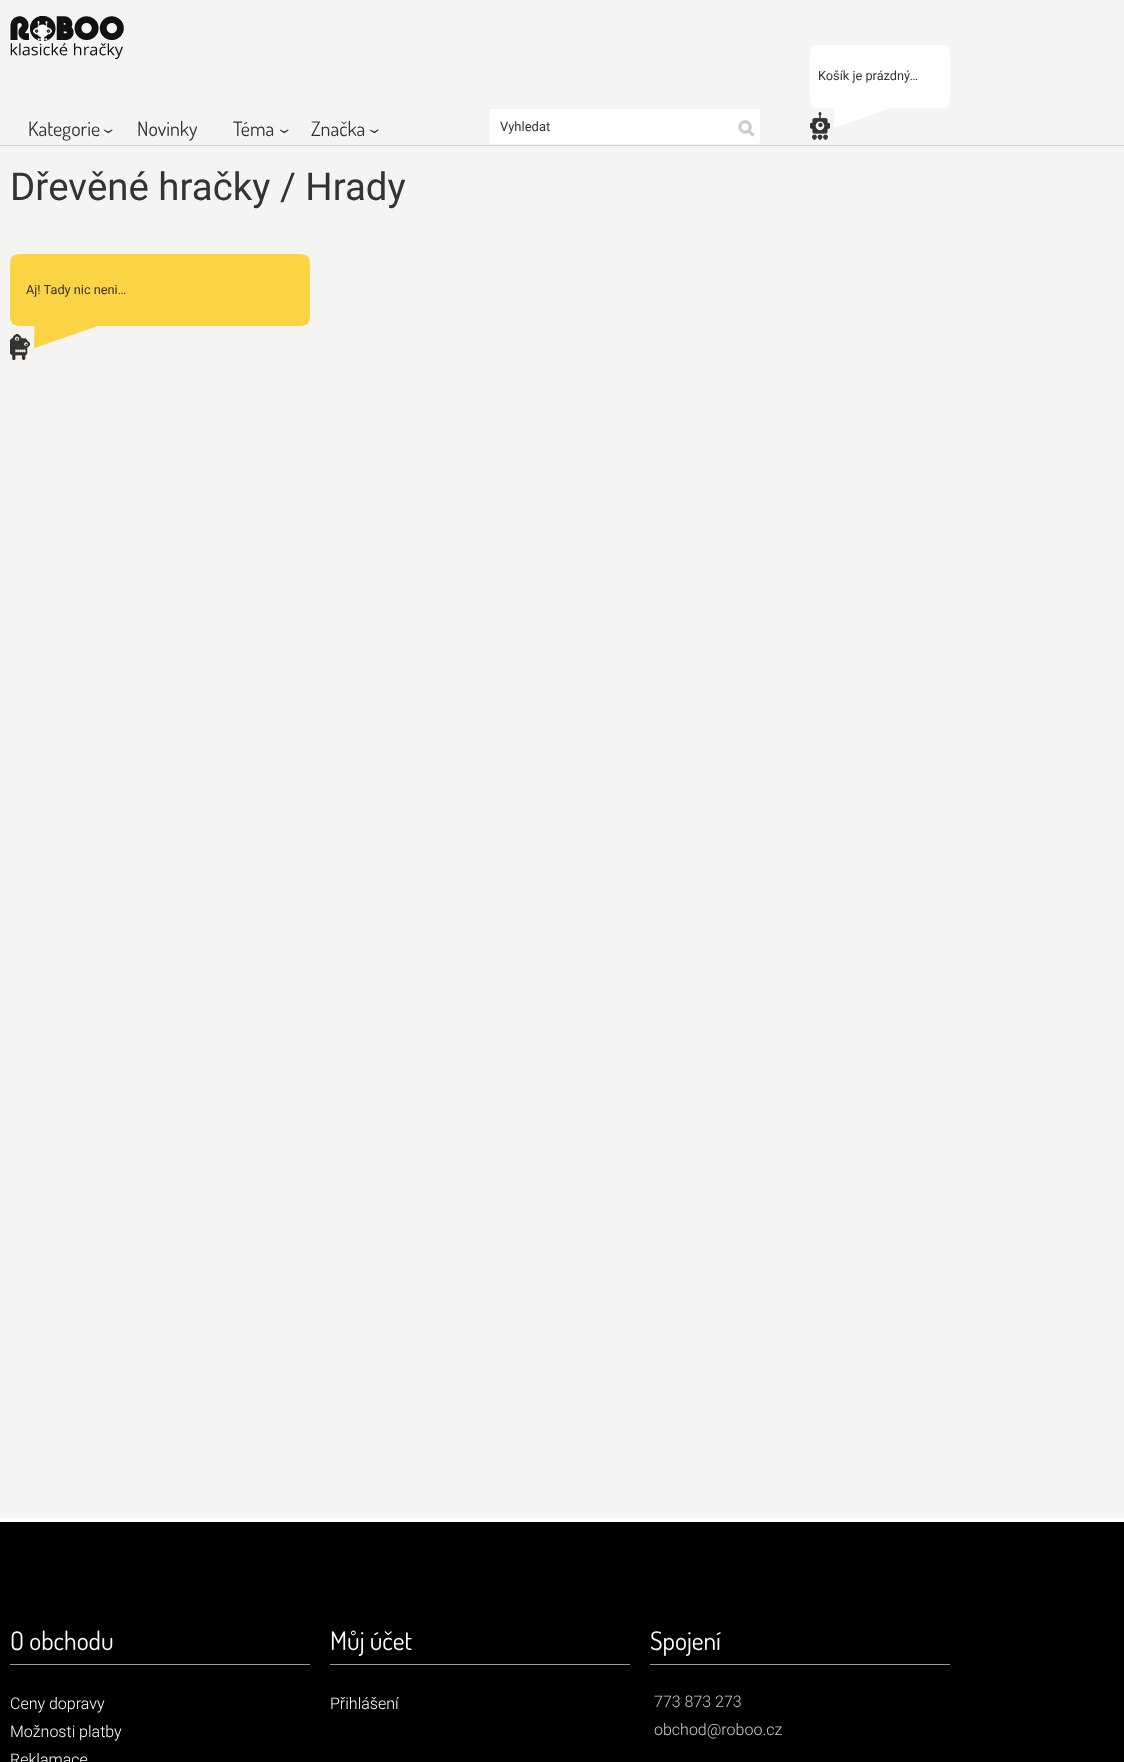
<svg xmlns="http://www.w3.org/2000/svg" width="1124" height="1762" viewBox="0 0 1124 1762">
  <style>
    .t1 { font: 12.75px Roboto; fill: #333; }
    .t2 { font: 20px Dosis; fill: #333; }
    .t3 { font: 13px Roboto; fill: #333; }
    .t4 { font: 38.4px Roboto; fill: #333; }
    .t5 { font: 25.5px Dosis; fill: #fff; }
    .t6 { font: 300 16px Roboto; fill: #fff; }
    .t7 { font: 300 16px Roboto; fill: #ccc; }
  </style>
  <rect width="100%" height="100%" fill="#f4f4f2"/>
  <rect x="0" y="145" width="1124" height="1" fill="#ccc"/>
  <image x="10" y="16" width="114" height="43" href="images/1.png"/>
  <image x="810" y="45" width="140" height="10" href="images/2.png"/>
  <rect x="810" y="55" width="140" height="41" fill="#fff"/>
  <text x="818" y="80" class="t1">Košík je prázdný…</text>
  <image x="104" y="129" width="9" height="5" href="images/3.png"/>
  <text x="28" y="136" class="t2">Kategorie</text>
  <text x="137" y="136" class="t2">Novinky</text>
  <image x="280" y="129" width="9" height="5" href="images/3.png"/>
  <text x="233" y="136" class="t2">Téma</text>
  <image x="370" y="129" width="9" height="5" href="images/3.png"/>
  <text x="311" y="136" class="t2">Značka</text>
  <rect x="490" y="109" width="270" height="35" fill="#fff"/>
  <text x="500" y="131" class="t3">Vyhledat</text>
  <image x="738" y="120" width="17" height="17" href="images/4.png"/>
  <image x="810" y="96" width="140" height="44" href="images/5.png"/>
  <text x="10" y="200" class="t4">Dřevěné hračky / Hrady</text>
  <image x="10" y="254" width="300" height="10" href="images/6.png"/>
  <rect x="10" y="264" width="300" height="52" fill="#fbd446"/>
  <text x="26" y="294" class="t1">Aj! Tady nic neni…</text>
  <image x="10" y="316" width="300" height="44" href="images/7.png"/>
  <rect x="0" y="1522" width="1124" height="240" fill="#000"/>
  <rect x="0" y="1518" width="1124" height="4" fill="#fff"/>
  <rect x="10" y="1664" width="300" height="1" fill="#999"/>
  <text x="10" y="1650" class="t5">O obchodu</text>
  <text x="10" y="1709" class="t6">Ceny dopravy</text>
  <text x="10" y="1737" class="t6">Možnosti platby</text>
  <text x="10" y="1765" class="t6">Reklamace</text>
  <rect x="330" y="1664" width="300" height="1" fill="#999"/>
  <text x="330" y="1650" class="t5">Můj účet</text>
  <text x="330" y="1709" class="t6">Přihlášení</text>
  <rect x="650" y="1664" width="300" height="1" fill="#999"/>
  <text x="650" y="1650" class="t5">Spojení</text>
  <text x="654" y="1707" class="t7">773 873 273</text>
  <text x="654" y="1735" class="t7">obchod@roboo.cz</text>
</svg>
